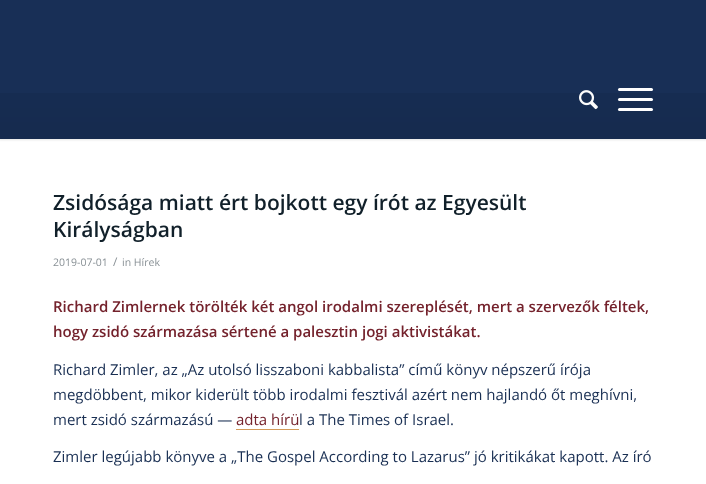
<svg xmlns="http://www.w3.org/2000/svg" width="706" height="484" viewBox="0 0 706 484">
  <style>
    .t1 { font: 600 21px Open Sans; fill: #11202a; }
    .t2 { font: 10.5px Open Sans; fill: #889095; }
    .t3 { font: 12px Open Sans; fill: #889095; }
    .t4 { font: 600 15px Open Sans; fill: #74222c; }
    .t5 { font: 15px Open Sans; fill: #192f53; }
    .t6 { font: 15px Open Sans; fill: #74222c; }
  </style>
  <rect width="100%" height="100%" fill="#fff"/>
  <rect x="-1" y="-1" width="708" height="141" fill="#0000001a" filter="blur(1px)"/>
  <rect x="0" y="0" width="706" height="139" fill="#182f56"/>
  <image x="0" y="93" width="706" height="46" href="images/1.png"/>
  <image x="579" y="90" width="19" height="20" href="images/2.png"/>
  <rect x="618" y="98" width="35" height="3" rx="1.5" fill="#fff"/>
  <rect x="618" y="88" width="35" height="3" rx="1.5" fill="#fff"/>
  <rect x="618" y="108" width="35" height="3" rx="1.5" fill="#fff"/>
  <text x="53" y="210" class="t1">Zsidósága miatt ért bojkott egy írót az Egyesült</text>
  <text x="53" y="237" class="t1">Királyságban</text>
  <text x="53" y="266" class="t2">2019-07-01</text>
  <text x="113" y="266" class="t3">/</text>
  <text x="122" y="266" class="t2">in Hírek</text>
  <text x="53" y="312" class="t4">Richard Zimlernek törölték két angol irodalmi szereplését, mert a szervezők féltek,</text>
  <text x="53" y="337" class="t4">hogy zsidó származása sértené a palesztin jogi aktivistákat.</text>
  <text x="53" y="375" class="t5">Richard Zimler, az „Az utolsó lisszaboni kabbalista” című könyv népszerű írója</text>
  <text x="53" y="400" class="t5">megdöbbent, mikor kiderült több irodalmi fesztivál azért nem hajlandó őt meghívni,</text>
  <text x="53" y="425" class="t5">mert zsidó származású —</text>
  <text x="236" y="425" class="t6">adta hírü</text>
  <rect x="236" y="429" width="63" height="1" fill="#d39a59"/>
  <text x="299" y="425" class="t5">l a The Times of Israel.</text>
  <text x="53" y="462" class="t5">Zimler legújabb könyve a „The Gospel According to Lazarus” jó kritikákat kapott. Az író</text>
</svg>
